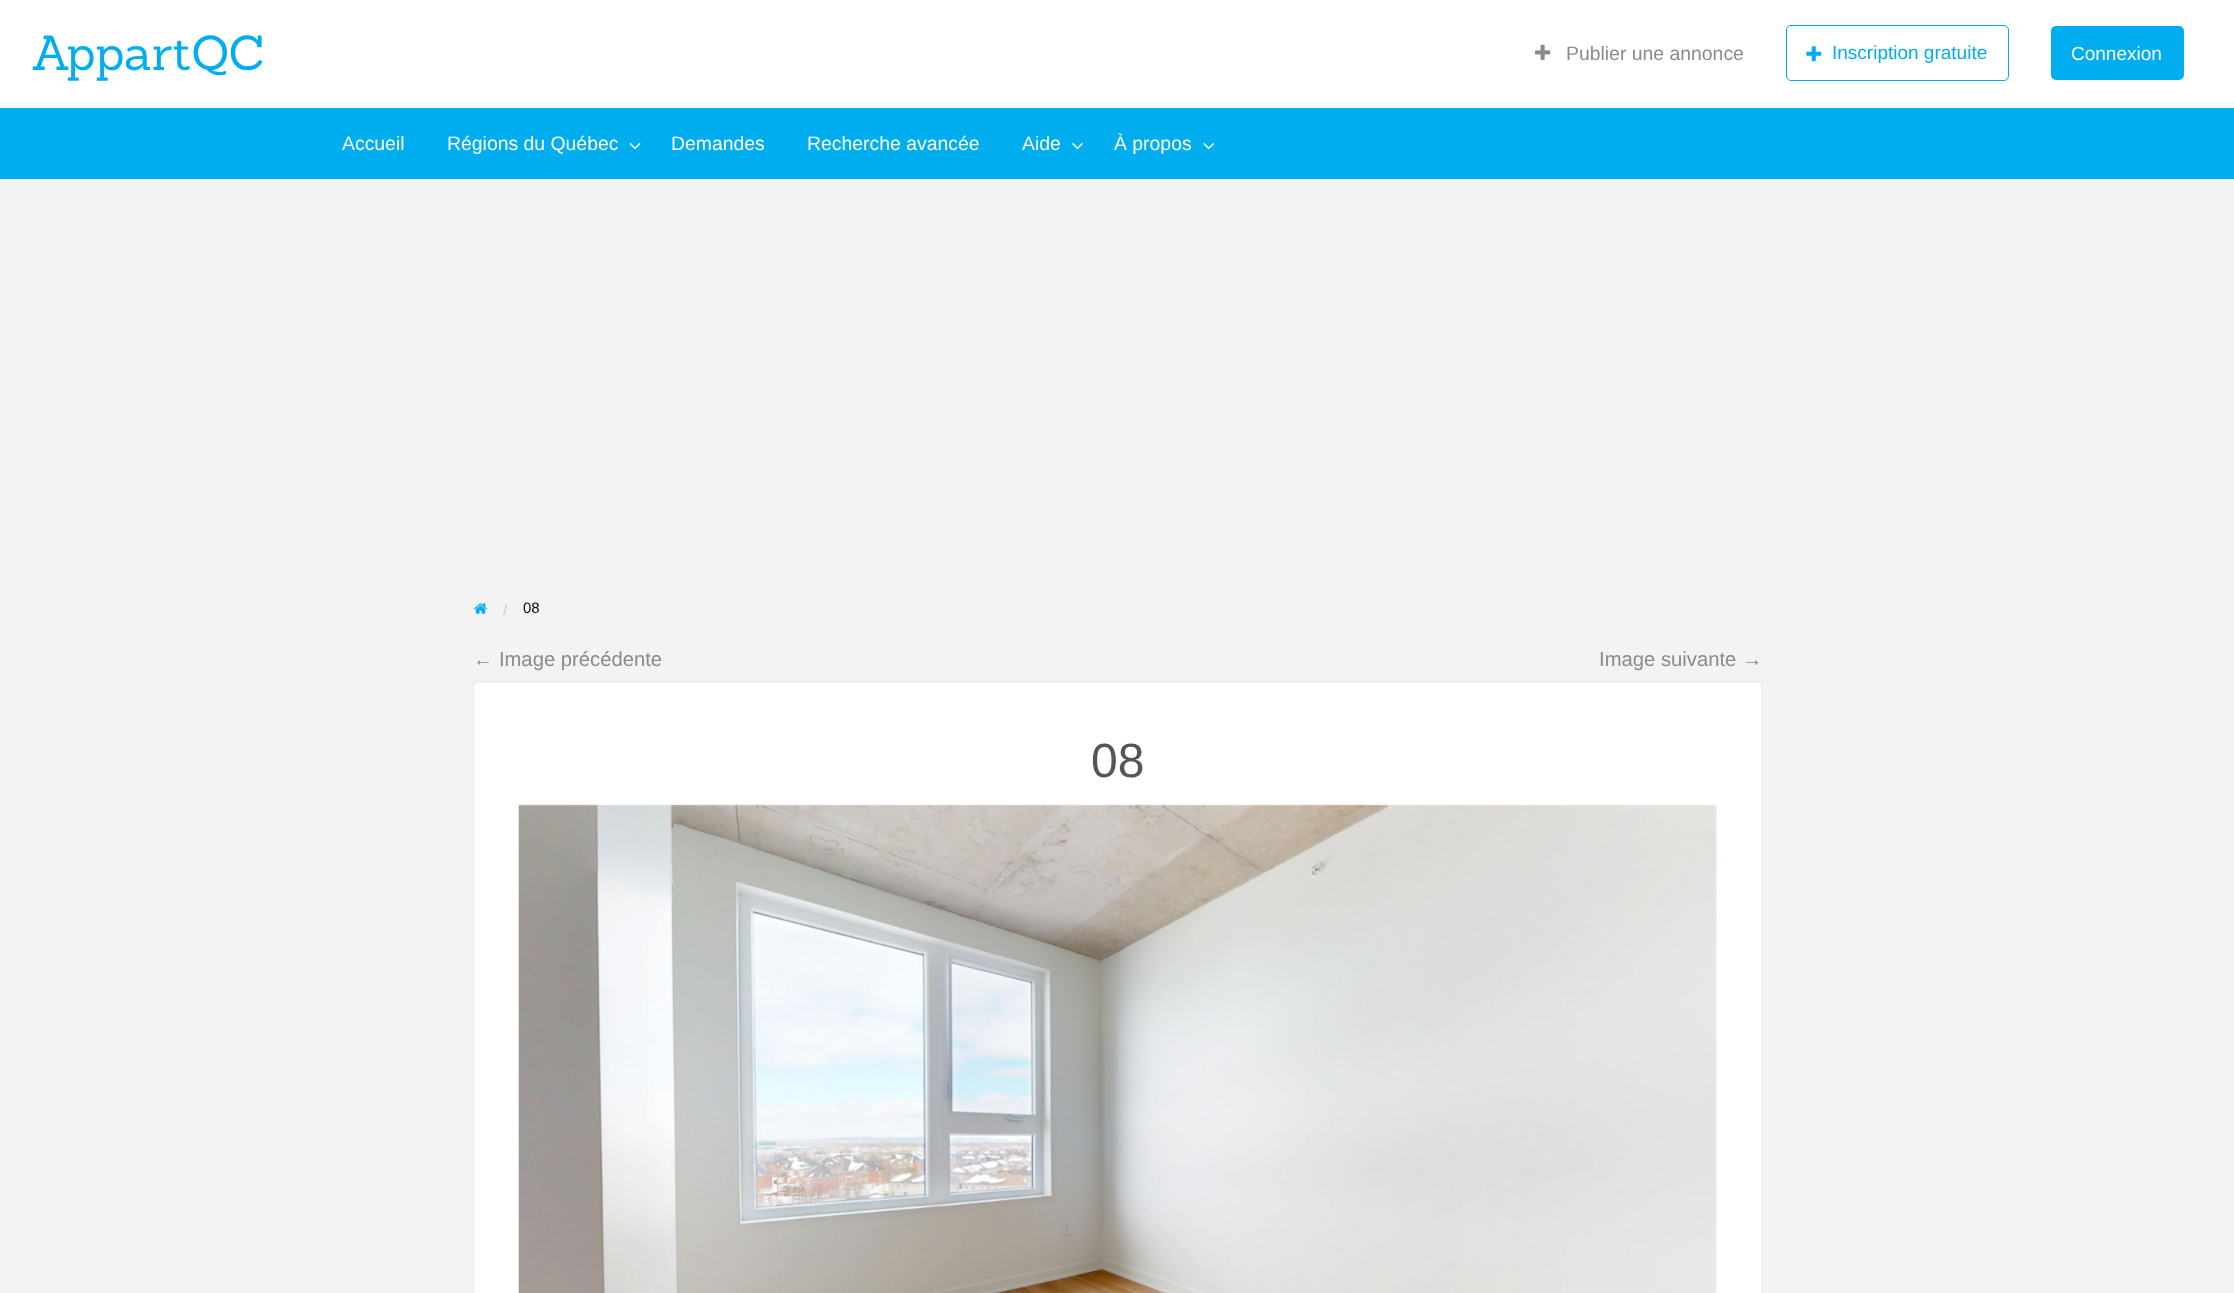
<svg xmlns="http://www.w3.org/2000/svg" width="2234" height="1293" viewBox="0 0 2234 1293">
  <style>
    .t1 { font: 48px Sanchez; fill: #00aef0; }
    .t2 { font: 19.4px Liberation Sans; fill: #8a8a8a; }
    .t3 { font: 19px Liberation Sans; fill: #00aef0; }
    .t4 { font: 19px Liberation Sans; fill: #fefefe; }
    .t5 { font: 19.4px Liberation Sans; fill: #fefefe; }
    .t6 { font: 15px Liberation Sans; fill: #cacaca; }
    .t7 { font: 15px Liberation Sans; fill: #0a0a0a; }
    .t8 { font: 20.25px Liberation Sans; fill: #8a8a8a; }
    .t9 { font: 48px Liberation Sans; fill: #565656; }
  </style>
  <rect width="100%" height="100%" fill="#f3f3f4"/>
  <rect x="0" y="0" width="2234" height="108" fill="#fff"/>
  <rect x="0" y="106" width="2234" height="1" fill="#f2f2f2"/>
  <text x="31" y="70" class="t1">AppartQC</text>
  <image x="1535" y="44" width="16" height="16" href="images/1.png"/>
  <text x="1566" y="60" class="t2">Publier une annonce</text>
  <rect x="1786.5" y="25.5" width="222" height="55" rx="4.5" fill="none" stroke="#00aef0"/>
  <image x="1806" y="46" width="16" height="16" href="images/2.png"/>
  <text x="1832" y="59" class="t3">Inscription gratuite</text>
  <rect x="2051" y="26" width="133" height="54" rx="5" fill="#00aef0"/>
  <text x="2071" y="60" class="t4">Connexion</text>
  <rect x="0" y="108" width="2234" height="71" fill="#00aef0"/>
  <text x="342" y="150" class="t5">Accueil</text>
  <text x="447" y="150" class="t5">Régions du Québec</text>
  <image x="629" y="143" width="12" height="7" href="images/3.png"/>
  <text x="671" y="150" class="t5">Demandes</text>
  <text x="807" y="150" class="t5">Recherche avancée</text>
  <text x="1022" y="150" class="t5">Aide</text>
  <image x="1072" y="143" width="11" height="7" href="images/4.png"/>
  <text x="1114" y="150" class="t5">À propos</text>
  <image x="1203" y="143" width="12" height="7" href="images/5.png"/>
  <image x="474" y="603" width="14" height="11" href="images/6.png"/>
  <text x="503" y="615" class="t6">/</text>
  <text x="523" y="613" class="t7">08</text>
  <text x="473" y="666" class="t8">← Image précédente</text>
  <text x="1599" y="666" class="t8">Image suivante →</text>
  <rect x="473.5" y="681.5" width="1289" height="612" fill="none" stroke="#00000008"/>
  <rect x="474" y="683" width="1287" height="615" rx="5" fill="#fff"/>
  <text x="1091" y="777" class="t9">08</text>
  <image x="518" y="804" width="1199" height="489" href="images/7.png"/>
</svg>
